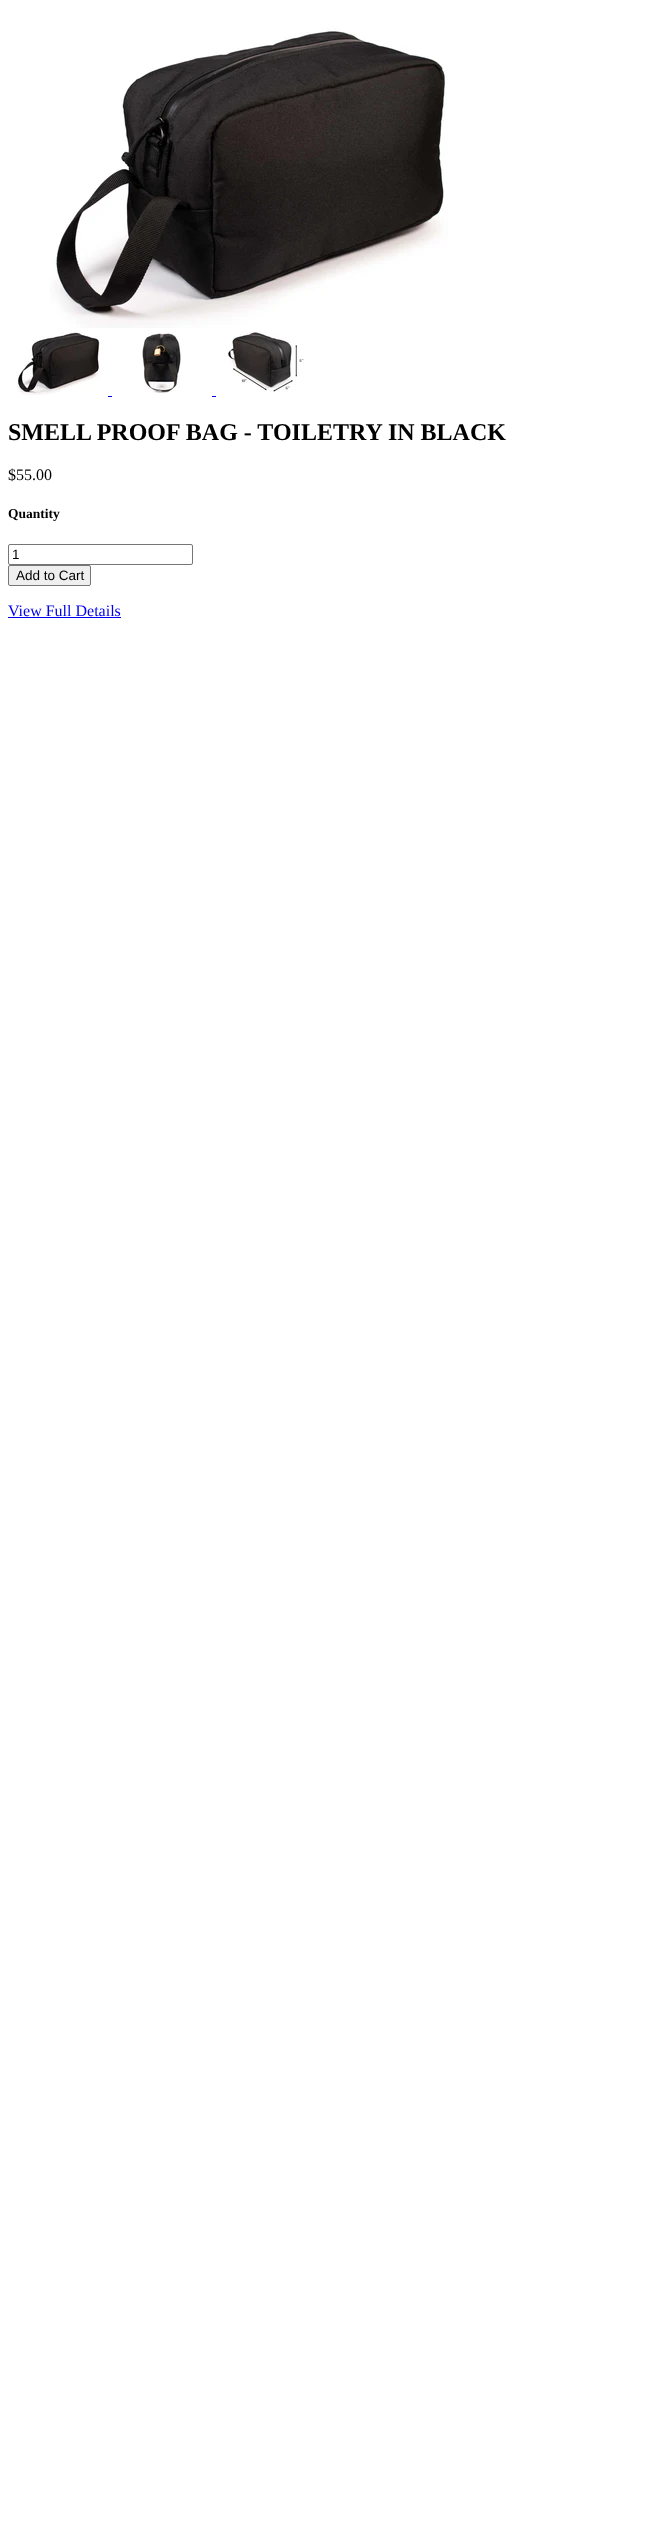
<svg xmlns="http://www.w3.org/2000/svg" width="668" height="2541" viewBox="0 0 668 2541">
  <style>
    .t1 { font: bold 24px Liberation Serif; fill: #000; }
    .t2 { font: 16px Liberation Serif; fill: #000; }
    .t3 { font: bold 13.5px Liberation Serif; fill: #000; }
    .t4 { font: 13.5px Liberation Sans; fill: #000; }
    .t5 { font: 16px Liberation Serif; fill: #00e; }
  </style>
  <rect width="100%" height="100%" fill="#fff"/>
  <image x="50" y="28" width="398" height="300" href="images/1.png"/>
  <image x="16" y="332" width="84" height="63" href="images/2.png"/>
  <image x="142" y="332" width="39" height="61" href="images/3.png"/>
  <image x="228" y="332" width="76" height="60" href="images/4.png"/>
  <rect x="108" y="396" width="4" height="1" fill="#00e"/>
  <rect x="212" y="396" width="4" height="1" fill="#00e"/>
  <text x="8" y="440" class="t1">SMELL PROOF BAG - TOILETRY IN BLACK</text>
  <text x="8" y="480" class="t2">$55.00</text>
  <text x="8" y="518" class="t3">Quantity</text>
  <rect x="8.5" y="544.5" width="184" height="20" rx="1.5" fill="none" stroke="#767676"/>
  <text x="12" y="559" class="t4">1</text>
  <rect x="8.5" y="565.5" width="82" height="20" rx="1.5" fill="#efefef" stroke="#767676"/>
  <text x="16" y="580" class="t4">Add to Cart</text>
  <text x="8" y="616" class="t5">View Full Details</text>
  <rect x="8" y="617" width="113" height="1" fill="#00e"/>
</svg>
